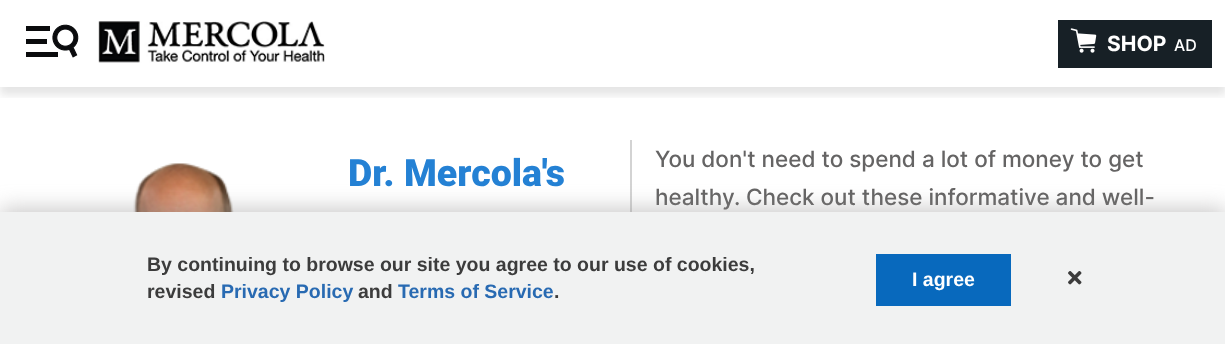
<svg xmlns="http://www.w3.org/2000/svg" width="1225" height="344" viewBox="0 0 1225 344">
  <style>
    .t1 { font: bold 21px Inter; fill: #fff; }
    .t2 { font: 500 16px Inter; fill: #fff; }
    .t3 { font: 900 37.5px Roboto; fill: #2481d4; }
    .t4 { font: 500 22.5px Inter; fill: #656464; }
    .t5 { font: bold 19.5px Liberation Sans; fill: #3c3c3c; }
    .t6 { font: bold 19.5px Liberation Sans; fill: #286ab2; }
    .t7 { font: bold 19.5px Liberation Sans; fill: #fff; }
  </style>
  <defs>
    <clipPath id="clip1"><rect x="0" y="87" width="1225" height="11"/></clipPath>
  </defs>
  <rect width="100%" height="100%" fill="#fff"/>
  <g clip-path="url(#clip1)">
    <rect x="0" y="8" width="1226" height="87" fill="#0000001a" filter="blur(4px)"/>
  </g>
  <image x="26" y="24" width="53" height="34" href="images/1.png"/>
  <image x="98" y="21" width="227" height="42" href="images/2.png"/>
  <rect x="1058" y="20" width="154" height="48" fill="#172026"/>
  <image x="1070" y="28" width="27" height="25" href="images/3.png"/>
  <text x="1107" y="51" class="t1">SHOP</text>
  <text x="1174" y="51" class="t2">AD</text>
  <image x="133" y="163" width="101" height="49" href="images/4.png"/>
  <text x="348" y="186" class="t3">Dr. Mercola's</text>
  <rect x="630" y="140" width="2" height="72" fill="#d3d3d3"/>
  <text x="655" y="167" class="t4">You don't need to spend a lot of money to get</text>
  <text x="655" y="205" class="t4">healthy. Check out these informative and well-</text>
  <rect x="0" y="209" width="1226" height="133" fill="#92909080" filter="blur(11px)"/>
  <rect x="0" y="212" width="1225" height="132" fill="#f1f2f2"/>
  <text x="147" y="271" class="t5">By continuing to browse our site you agree to our use of cookies,</text>
  <text x="147" y="298" class="t5">revised</text>
  <text x="221" y="298" class="t6">Privacy Policy</text>
  <text x="358" y="298" class="t5">and</text>
  <text x="398" y="298" class="t6">Terms of Service</text>
  <text x="554" y="298" class="t5">.</text>
  <rect x="876" y="254" width="135" height="52" fill="#0869bd"/>
  <text x="912" y="286" class="t7">I agree</text>
  <image x="1068" y="271" width="14" height="14" href="images/5.png"/>
</svg>
